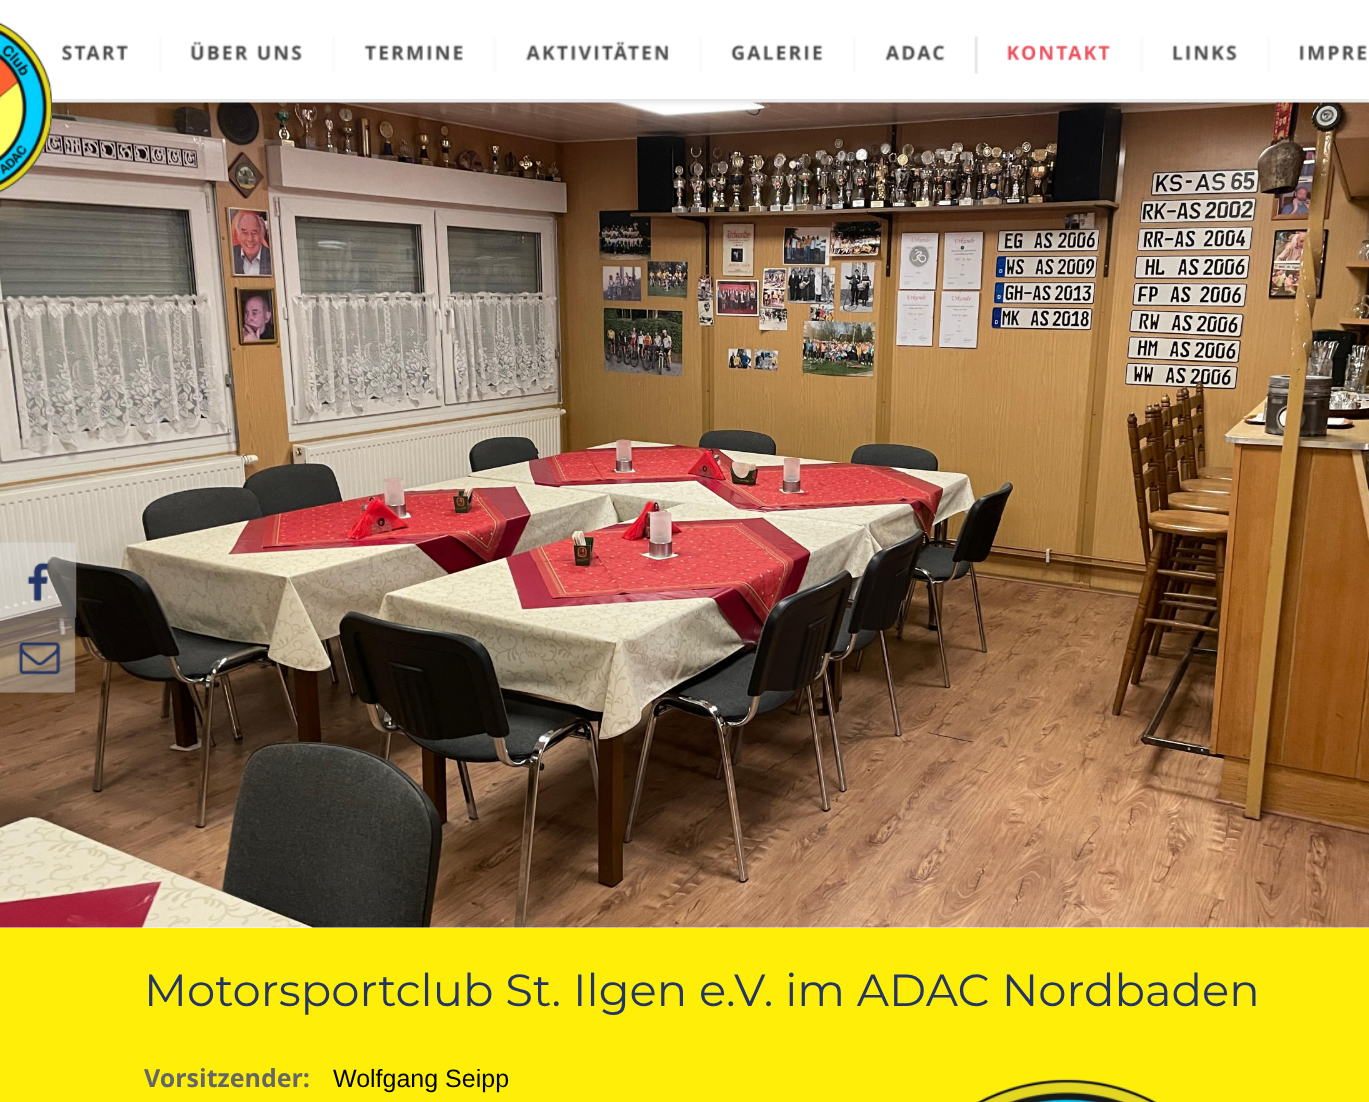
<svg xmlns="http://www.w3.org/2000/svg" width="1369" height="1102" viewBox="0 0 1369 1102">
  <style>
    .t1 { font: 45px Montserrat; fill: #243565; }
    .t2 { font: bold 25px Open Sans; fill: #666; }
    .t3 { font: 25px Liberation Sans; fill: #000; }
  </style>
  <rect width="100%" height="100%" fill="#fff"/>
  <image x="0" y="102" width="1369" height="826" href="images/14.png"/>
  <rect x="0" y="-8" width="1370" height="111" fill="#0000001a" filter="blur(2.5px)"/>
  <rect x="0" y="0" width="1369" height="99" fill="#fff"/>
  <image x="29" y="37" width="99" height="36" href="images/2.png"/>
  <image x="0" y="22" width="52" height="171" href="images/1.png"/>
  <image x="159" y="37" width="143" height="36" href="images/3.png"/>
  <image x="332" y="37" width="131" height="36" href="images/4.png"/>
  <image x="493" y="37" width="177" height="36" href="images/5.png"/>
  <image x="699" y="37" width="124" height="36" href="images/6.png"/>
  <image x="853" y="37" width="92" height="36" href="images/7.png"/>
  <image x="975" y="37" width="3" height="36" href="images/9.png"/>
  <image x="974" y="36" width="137" height="38" href="images/8.png"/>
  <image x="1140" y="37" width="97" height="36" href="images/10.png"/>
  <image x="1267" y="37" width="100" height="36" href="images/11.png"/>
  <image x="0" y="542" width="77" height="76" href="images/12.png"/>
  <image x="0" y="617" width="76" height="76" href="images/13.png"/>
  <rect x="0" y="928" width="1369" height="174" fill="#ffef08"/>
  <text x="144" y="1006" class="t1">Motorsportclub St. Ilgen e.V. im ADAC Nordbaden</text>
  <text x="144" y="1087" class="t2">Vorsitzender:</text>
  <text x="333" y="1087" class="t3">Wolfgang Seipp</text>
  <image x="975" y="1078" width="184" height="24" href="images/15.png"/>
</svg>
